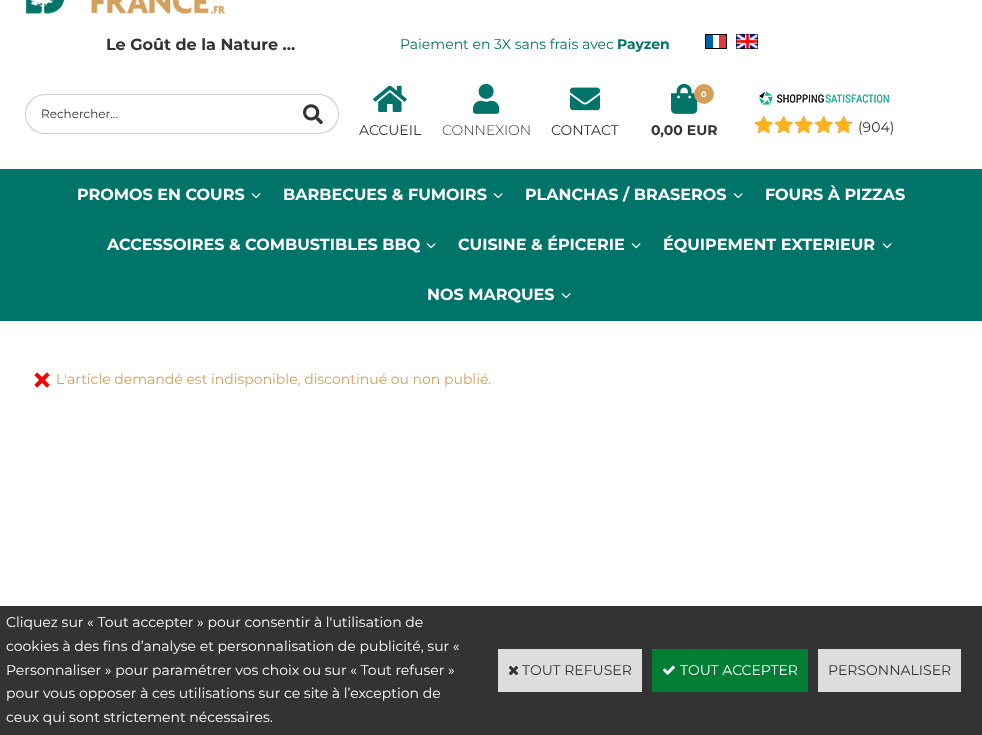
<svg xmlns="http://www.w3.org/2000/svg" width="982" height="735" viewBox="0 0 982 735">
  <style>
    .t1 { font: bold 16px Montserrat; fill: #333; }
    .t2 { font: 14px Montserrat; fill: #007469; }
    .t3 { font: bold 14px Montserrat; fill: #007469; }
    .t4 { font: 12px Montserrat; fill: #333; }
    .t5 { font: 14px Montserrat; fill: #333; }
    .t6 { font: 300 14px Montserrat; fill: #333; }
    .t7 { font: bold 8px Montserrat; fill: #fff; }
    .t8 { font: bold 14px Montserrat; fill: #333; }
    .t9 { font: bold 16px Montserrat; fill: #fff; }
    .t10 { font: 14px Montserrat; fill: #d3a05c; }
    .t11 { font: 14px Montserrat; fill: #fff; }
  </style>
  <rect width="100%" height="100%" fill="#fff"/>
  <image x="25" y="0" width="201" height="14" href="images/1.png"/>
  <text x="106" y="50" class="t1">Le Goût de la Nature ...</text>
  <text x="400" y="49" class="t2">Paiement en 3X sans frais avec</text>
  <text x="617" y="49" class="t3">Payzen</text>
  <image x="705" y="34" width="22" height="15" href="images/2.png"/>
  <image x="736" y="34" width="22" height="15" href="images/3.png"/>
  <path d="M45 94H288V134H45C34 134 25 125 25 114C25 103 34 94 45 94ZM45 95H288V133H45C35 133 26 124 26 114C26 104 35 95 45 95Z" fill="#d0d0d0" fill-rule="evenodd"/>
  <text x="41" y="118" class="t4">Rechercher...</text>
  <path d="M288 94H319C330 94 339 103 339 114C339 125 330 134 319 134H288ZM288 95H319C329 95 338 104 338 114C338 124 329 133 319 133H288Z" fill="#d0d0d0" fill-rule="evenodd"/>
  <image x="303" y="104" width="20" height="21" href="images/4.png"/>
  <image x="373" y="85" width="34" height="27" href="images/5.png"/>
  <text x="359" y="135" class="t5">ACCUEIL</text>
  <image x="473" y="83" width="27" height="31" href="images/6.png"/>
  <text x="442" y="135" class="t6">CONNEXION</text>
  <image x="570" y="87" width="30" height="24" href="images/7.png"/>
  <text x="551" y="135" class="t5">CONTACT</text>
  <image x="671" y="83" width="27" height="31" href="images/8.png"/>
  <circle cx="704" cy="94" r="10" fill="#d3a05c"/>
  <text x="701" y="97" class="t7">0</text>
  <text x="651" y="135" class="t8">0,00 EUR</text>
  <image x="759" y="91" width="130" height="14" href="images/9.png"/>
  <image x="755" y="116" width="98" height="17" href="images/10.png"/>
  <image x="755" y="116" width="94" height="17" href="images/11.png"/>
  <text x="858" y="132" class="t5">(904)</text>
  <rect x="0" y="169" width="982" height="152" fill="#007469"/>
  <text x="77" y="200" class="t9">PROMOS EN COURS</text>
  <image x="251" y="193" width="10" height="6" href="images/12.png"/>
  <text x="283" y="200" class="t9">BARBECUES &amp; FUMOIRS</text>
  <image x="493" y="193" width="10" height="6" href="images/12.png"/>
  <text x="525" y="200" class="t9">PLANCHAS / BRASEROS</text>
  <image x="733" y="193" width="10" height="6" href="images/12.png"/>
  <text x="765" y="200" class="t9">FOURS À PIZZAS</text>
  <text x="107" y="250" class="t9">ACCESSOIRES &amp; COMBUSTIBLES BBQ</text>
  <image x="426" y="243" width="10" height="6" href="images/12.png"/>
  <text x="458" y="250" class="t9">CUISINE &amp; ÉPICERIE</text>
  <image x="631" y="243" width="10" height="6" href="images/12.png"/>
  <text x="663" y="250" class="t9">ÉQUIPEMENT EXTERIEUR</text>
  <image x="882" y="243" width="10" height="6" href="images/12.png"/>
  <text x="427" y="300" class="t9">NOS MARQUES</text>
  <image x="561" y="293" width="10" height="6" href="images/12.png"/>
  <image x="34" y="372" width="16" height="16" href="images/13.png"/>
  <text x="56" y="384" class="t10">L'article demandé est indisponible, discontinué ou non publié.</text>
  <rect x="0" y="606" width="982" height="129" fill="#333"/>
  <text x="6" y="627" class="t11">Cliquez sur « Tout accepter » pour consentir à l'utilisation de</text>
  <text x="6" y="651" class="t11">cookies à des fins d’analyse et personnalisation de publicité, sur «</text>
  <text x="6" y="675" class="t11">Personnaliser » pour paramétrer vos choix ou sur « Tout refuser »</text>
  <text x="6" y="698" class="t11">pour vous opposer à ces utilisations sur ce site à l’exception de</text>
  <text x="6" y="722" class="t11">ceux qui sont strictement nécessaires.</text>
  <rect x="498" y="649" width="144" height="43" fill="#ddd"/>
  <image x="508" y="665" width="11" height="11" href="images/14.png"/>
  <text x="522" y="675" class="t5">TOUT REFUSER</text>
  <rect x="652" y="649" width="156" height="43" fill="#007e33"/>
  <image x="663" y="665" width="12" height="10" href="images/15.png"/>
  <text x="680" y="675" class="t11">TOUT ACCEPTER</text>
  <rect x="818" y="649" width="143" height="43" fill="#ddd"/>
  <text x="828" y="675" class="t5">PERSONNALISER</text>
</svg>
